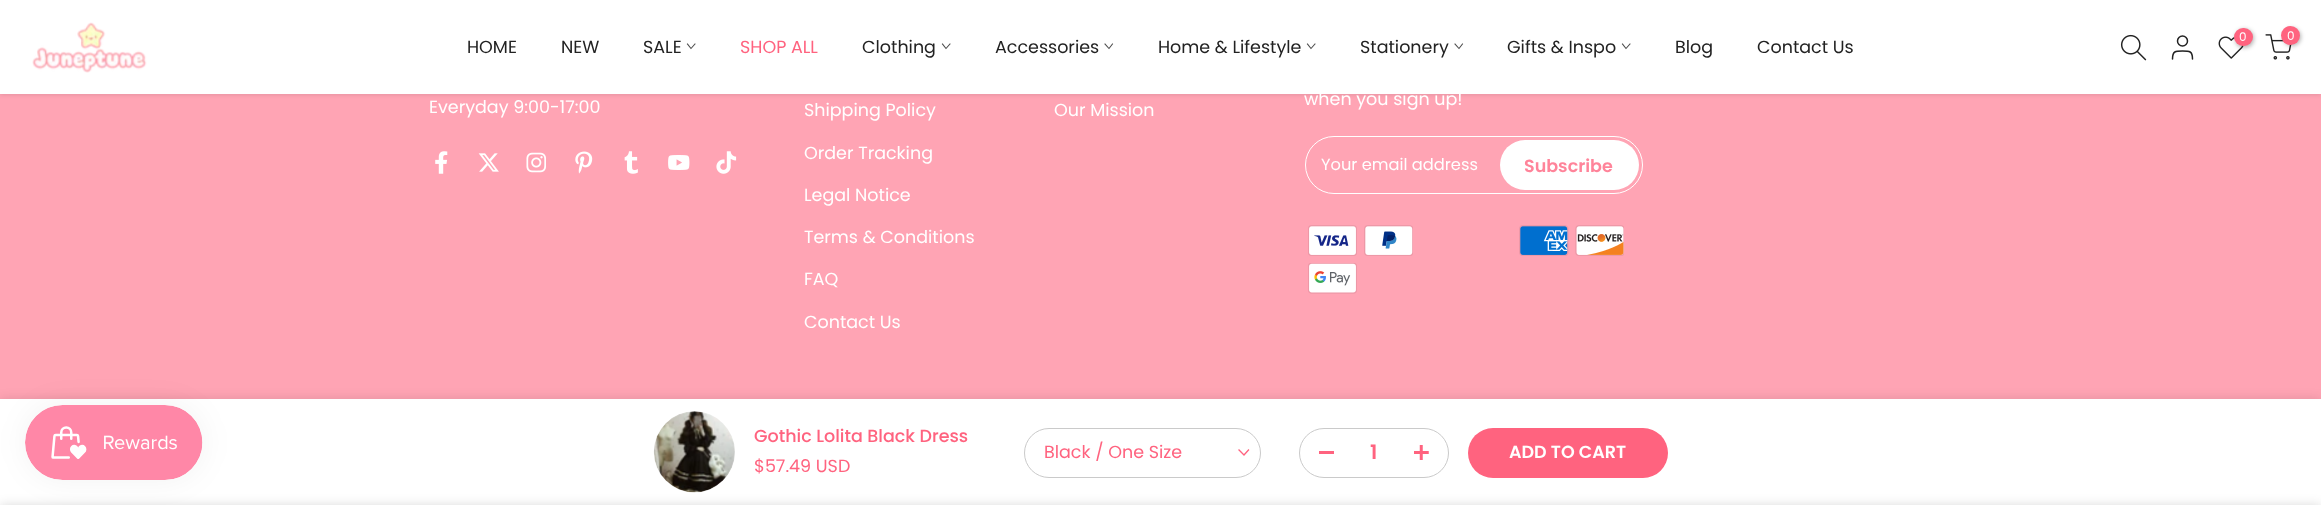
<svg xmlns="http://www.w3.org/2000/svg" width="2321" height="505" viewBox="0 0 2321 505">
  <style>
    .t1 { font: 12px Poppins; fill: #fff; }
    .t2 { font: 17.5px Poppins; fill: #222; }
    .t3 { font: 17.5px Poppins; fill: #ff637f; }
    .t4 { font: 17.5px Poppins; fill: #fff; }
    .t5 { font: 16.25px Poppins; fill: #fff; }
    .t6 { font: 600 17.5px Poppins; fill: #ff849a; }
    .t7 { font: 500 17.5px Poppins; fill: #ff637f; }
    .t8 { font: 600 20px Poppins; fill: #ff637f; }
    .t9 { font: 600 17.5px Poppins; fill: #fff; }
  </style>
  <rect width="100%" height="100%" fill="#ffa4b4"/>
  <rect x="0" y="1" width="2321" height="94" fill="#0000001a" filter="blur(2px)"/>
  <rect x="0" y="0" width="2321" height="94" fill="#fff"/>
  <image x="32" y="22" width="115" height="51" href="images/1.png"/>
  <image x="2120" y="34" width="27" height="27" href="images/2.png"/>
  <circle cx="2182.5" cy="41" r="5" fill="none" stroke="#222" stroke-width="1.5"/>
  <path d="M2192.5 59C2192.5 51 2189.5 51 2182.5 51C2175.5 51 2172.5 51 2172.5 59" fill="none" stroke="#222" stroke-width="1.5" stroke-linecap="round" stroke-linejoin="round"/>
  <image x="2218" y="36" width="26" height="23" href="images/3.png"/>
  <rect x="2235" y="29" width="19" height="19" rx="9.5" fill="#0000004d" filter="blur(2px)"/>
  <rect x="2234" y="28" width="19" height="18" rx="9" fill="#ff637f"/>
  <text x="2239" y="41" class="t1">0</text>
  <image x="2265" y="34" width="27" height="26" href="images/4.png"/>
  <rect x="2283" y="28" width="18" height="18" rx="9" fill="#0000004d" filter="blur(2px)"/>
  <circle cx="2290.5" cy="35.5" r="9.5" fill="#ff637f"/>
  <text x="2287" y="40" class="t1">0</text>
  <text x="467" y="53" class="t2">HOME</text>
  <text x="561" y="53" class="t2">NEW</text>
  <text x="643" y="53" class="t2">SALE</text>
  <path d="M695 44L691 48.5L687.5 44" fill="none" stroke="#4e4e4e" stroke-width="1.1" stroke-linecap="square"/>
  <text x="740" y="53" class="t3">SHOP ALL</text>
  <text x="862" y="53" class="t2">Clothing</text>
  <path d="M950 44L946 48.5L942.5 44" fill="none" stroke="#4e4e4e" stroke-width="1.1" stroke-linecap="square"/>
  <text x="995" y="53" class="t2">Accessories</text>
  <path d="M1112.5 44L1109 48.5L1105 44" fill="none" stroke="#4e4e4e" stroke-width="1.1" stroke-linecap="square"/>
  <text x="1158" y="53" class="t2">Home &amp; Lifestyle</text>
  <path d="M1315 44L1311 48.5L1307.5 44" fill="none" stroke="#4e4e4e" stroke-width="1.1" stroke-linecap="square"/>
  <text x="1360" y="53" class="t2">Stationery</text>
  <path d="M1462.5 44L1459 48.5L1455 44" fill="none" stroke="#4e4e4e" stroke-width="1.1" stroke-linecap="square"/>
  <text x="1507" y="53" class="t2">Gifts &amp; Inspo</text>
  <path d="M1630 44L1626 48.5L1622.5 44" fill="none" stroke="#4e4e4e" stroke-width="1.1" stroke-linecap="square"/>
  <text x="1675" y="53" class="t2">Blog</text>
  <text x="1757" y="53" class="t2">Contact Us</text>
  <text x="429" y="113" class="t4">Everyday 9:00-17:00</text>
  <image x="435" y="151" width="13" height="23" href="images/5.png"/>
  <image x="478" y="153" width="21" height="19" href="images/6.png"/>
  <image x="526" y="152" width="20" height="21" href="images/7.png"/>
  <image x="575" y="151" width="18" height="23" href="images/8.png"/>
  <image x="624" y="151" width="14" height="23" href="images/9.png"/>
  <image x="668" y="155" width="22" height="15" href="images/10.png"/>
  <image x="716" y="151" width="21" height="23" href="images/11.png"/>
  <text x="804" y="116" class="t4">Shipping Policy</text>
  <text x="804" y="159" class="t4">Order Tracking</text>
  <text x="804" y="201" class="t4">Legal Notice</text>
  <text x="804" y="243" class="t4">Terms &amp; Conditions</text>
  <text x="804" y="285" class="t4">FAQ</text>
  <text x="804" y="328" class="t4">Contact Us</text>
  <text x="1054" y="116" class="t4">Our Mission</text>
  <text x="1304" y="105" class="t4">when you sign up!</text>
  <rect x="1305.5" y="136.5" width="337" height="57" rx="28.5" fill="none" stroke="#fff"/>
  <text x="1321" y="170" class="t5">Your email address</text>
  <rect x="1500" y="140" width="139" height="50" rx="25" fill="#fff"/>
  <text x="1524" y="172" class="t6">Subscribe</text>
  <image x="1308" y="225" width="49" height="31" href="images/12.png"/>
  <image x="1364" y="225" width="49" height="31" href="images/13.png"/>
  <image x="1519" y="225" width="50" height="31" href="images/14.png"/>
  <image x="1575" y="225" width="49" height="31" href="images/15.png"/>
  <image x="1308" y="263" width="49" height="31" href="images/16.png"/>
  <rect x="0" y="399" width="2321" height="106" fill="#0000001f" filter="blur(5.5px)"/>
  <rect x="0" y="399" width="2321" height="106" fill="#fff"/>
  <rect x="25" y="405" width="178" height="75" rx="37.5" fill="#0000000d" filter="blur(15.5px)"/>
  <image x="25" y="405" width="178" height="75" href="images/17.png"/>
  <image x="653" y="411" width="82" height="82" href="images/18.png"/>
  <text x="754" y="442" class="t7">Gothic Lolita Black Dress</text>
  <text x="754" y="472" class="t3">$57.49 USD</text>
  <rect x="1024.5" y="428.5" width="236" height="49" rx="24.5" fill="none" stroke="#cacaca"/>
  <text x="1044" y="458" class="t3">Black / One Size</text>
  <path d="M1248.5 450L1244 455L1239 450" fill="none" stroke="#ff637f" stroke-width="1.3" stroke-linecap="square"/>
  <rect x="1299.5" y="428.5" width="149" height="49" rx="24.5" fill="none" stroke="#cacaca"/>
  <rect x="1319" y="451" width="15" height="3" fill="#ff637f"/>
  <text x="1370" y="459" class="t8">1</text>
  <image x="1414" y="445" width="15" height="15" href="images/19.png"/>
  <rect x="1468" y="428" width="200" height="50" rx="25" fill="#ff637f"/>
  <text x="1509" y="458" class="t9">ADD TO CART</text>
  <rect x="0" y="505" width="2321" height="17" fill="#00000024" filter="blur(5.5px)"/>
</svg>
